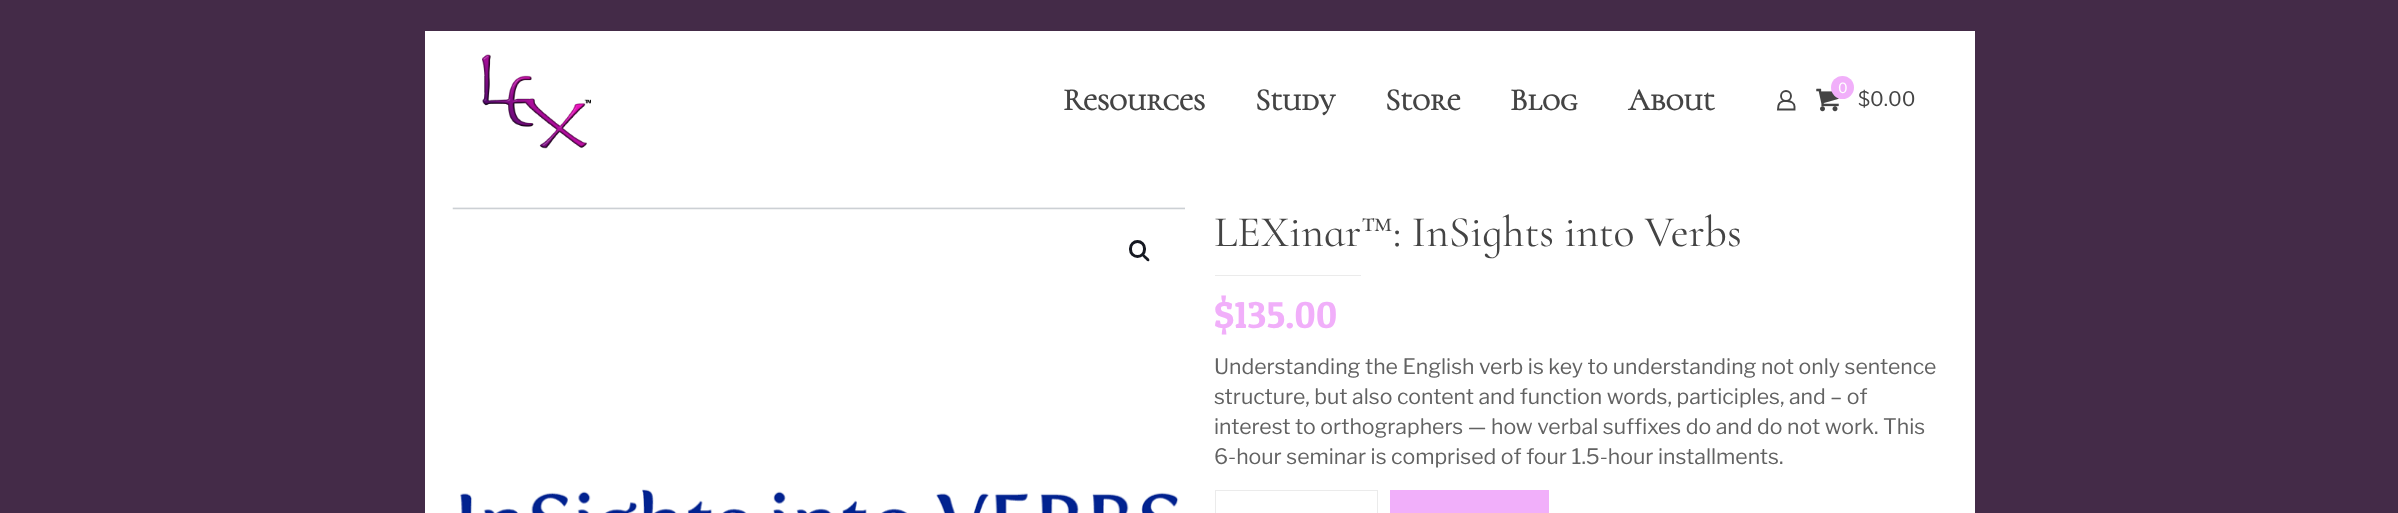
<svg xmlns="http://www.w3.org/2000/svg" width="2398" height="513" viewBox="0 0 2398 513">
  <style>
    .t1 { font: bold 31.25px Cormorant Unicase; fill: #444; }
    .t2 { font: 100 14px Libre Franklin; fill: #fff; }
    .t3 { font: 100 20px Libre Franklin; fill: #444; }
    .t4 { font: 300 43.75px Cormorant Infant; fill: #444; }
    .t5 { font: 37.5px Patua One; fill: #f1affa; }
    .t6 { font: 100 21.25px Libre Franklin; fill: #626262; }
  </style>
  <rect width="100%" height="100%" fill="#442b48"/>
  <rect x="425" y="31" width="1550" height="482" fill="#fff"/>
  <image x="482" y="54" width="109" height="95" href="images/1.png"/>
  <text x="1063" y="110" class="t1">Resources</text>
  <text x="1255" y="110" class="t1">Study</text>
  <text x="1385" y="110" class="t1">Store</text>
  <text x="1510" y="110" class="t1">Blog</text>
  <text x="1628" y="110" class="t1">About</text>
  <circle cx="1786" cy="96" r="5" fill="none" stroke="#444" stroke-width="1.9"/>
  <path d="M1794.5 106.5V109.5H1778L1778.5 105.5C1780 99 1794.5 99.5 1794.5 106.5Z" fill="none" stroke="#444" stroke-width="1.9"/>
  <image x="1816" y="88" width="23" height="24" href="images/2.png"/>
  <circle cx="1842.5" cy="87.5" r="11.5" fill="#f1affa"/>
  <text x="1838" y="93" class="t2">0</text>
  <text x="1858" y="106" class="t3">$0.00</text>
  <image x="452" y="207" width="733" height="306" href="images/3.png"/>
  <rect x="1130.5" y="241.5" width="14" height="15" rx="7" fill="none" stroke="#161922" stroke-width="3"/>
  <path d="M1142 254C1143.5 252.5 1145.5 256 1146.5 256.5C1147.5 257.5 1150.5 259.5 1149 261C1147.5 262.5 1145.5 259 1144.5 258.5C1144 257.5 1140.5 255.5 1142 254Z" fill="#161922"/>
  <text x="1214" y="246" class="t4">LEXinar™: InSights into Verbs</text>
  <rect x="1215" y="275" width="146" height="1" fill="#ebebeb"/>
  <text x="1214" y="328" class="t5">$135.00</text>
  <text x="1214" y="374" class="t6">Understanding the English verb is key to understanding not only sentence</text>
  <text x="1214" y="404" class="t6">structure, but also content and function words, participles, and – of</text>
  <text x="1214" y="434" class="t6">interest to orthographers — how verbal suffixes do and do not work. This</text>
  <text x="1214" y="464" class="t6">6-hour seminar is comprised of four 1.5-hour installments.</text>
  <rect x="1215.5" y="490.5" width="162" height="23" fill="none" stroke="#ebebeb"/>
  <rect x="1390" y="490" width="159" height="23" fill="#f1affa"/>
</svg>
